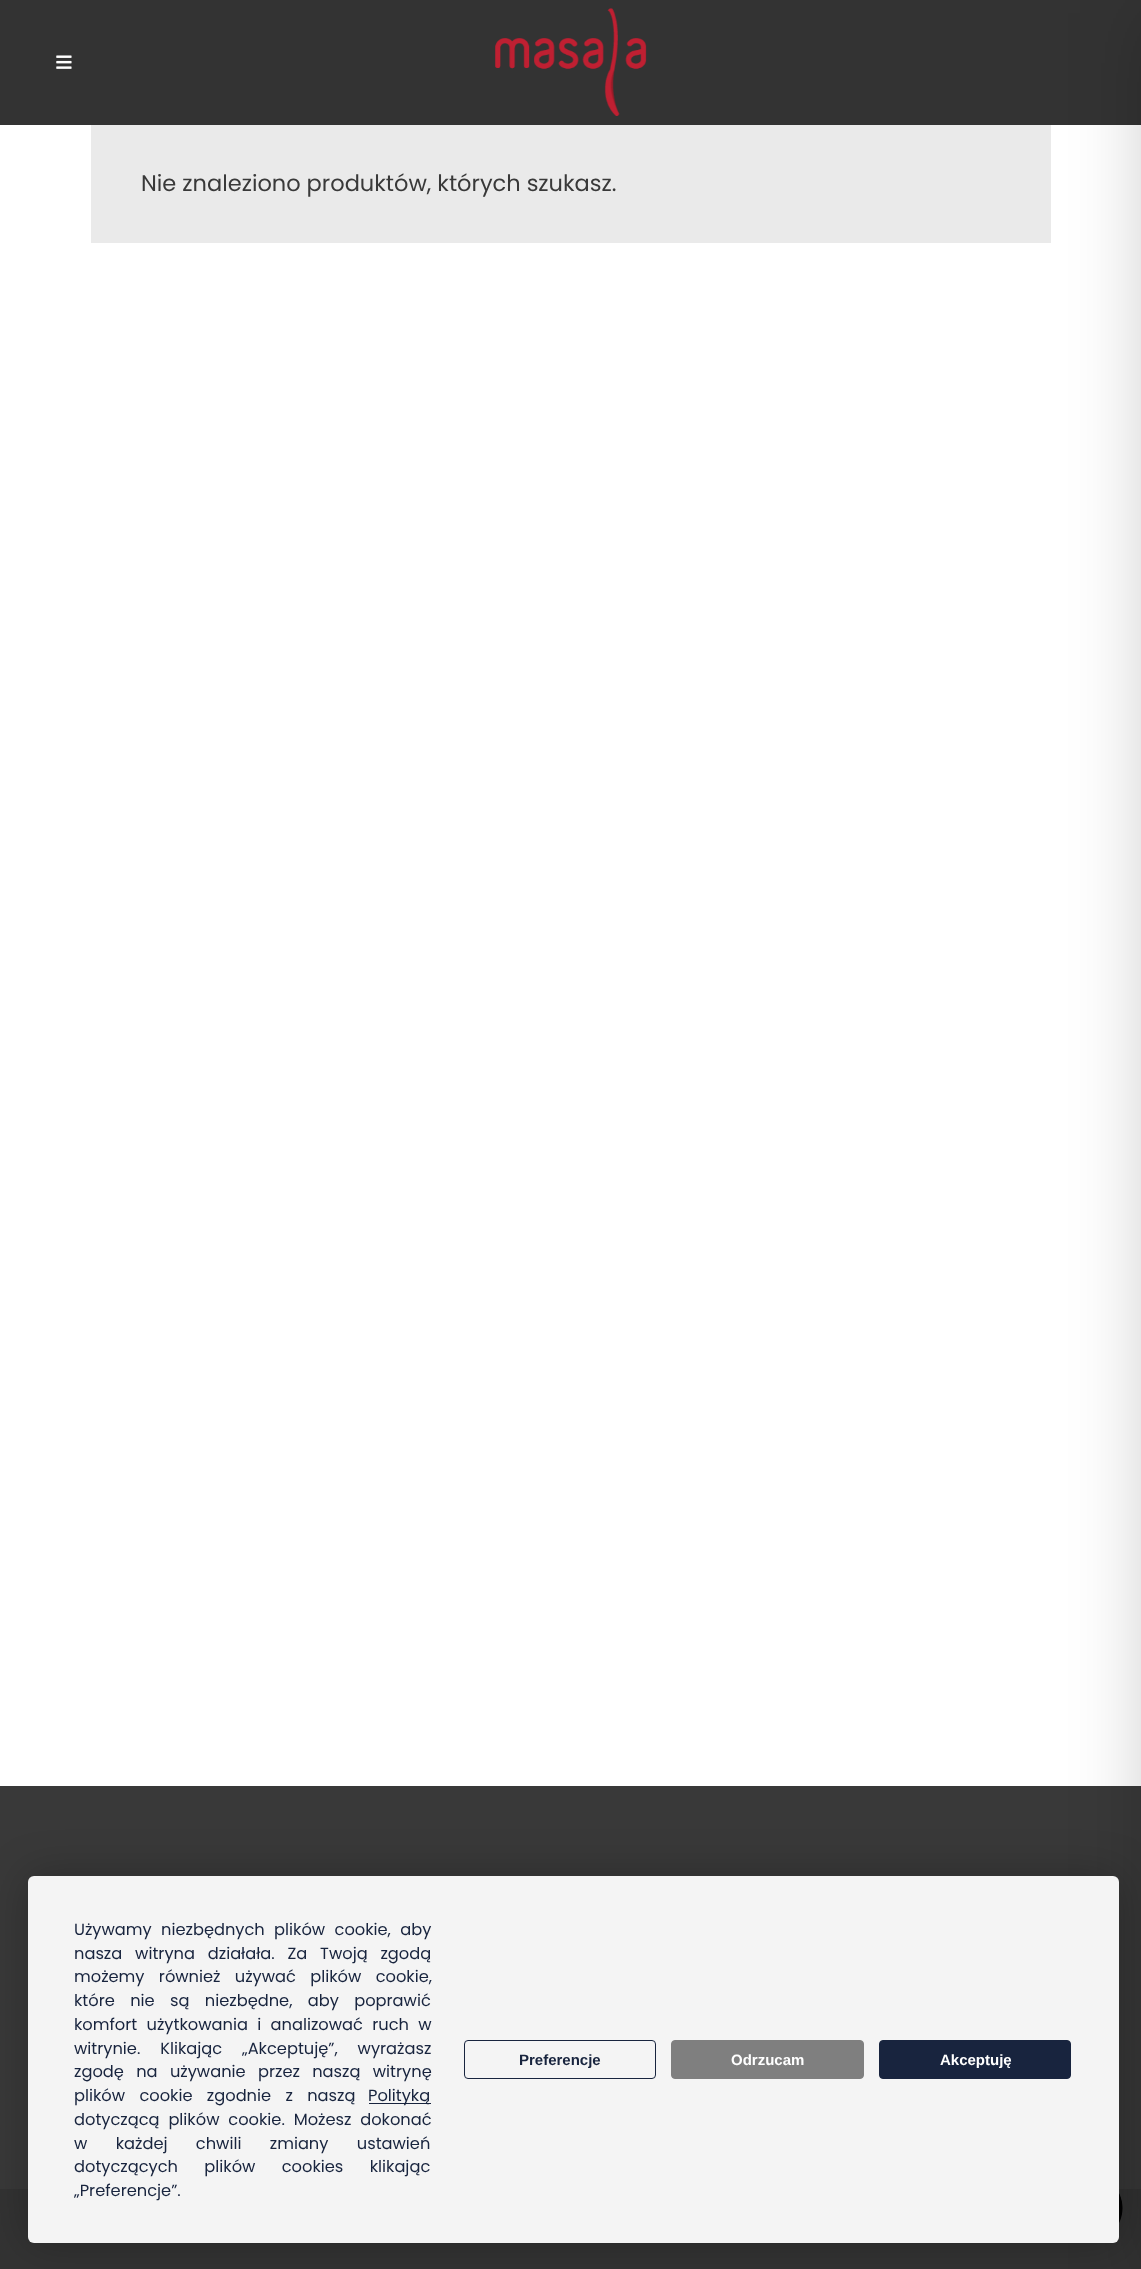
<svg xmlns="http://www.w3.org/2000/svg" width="1141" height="2269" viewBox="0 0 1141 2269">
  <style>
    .t1 { font: 22.5px Poppins; fill: #393939; }
    .t2 { font: 16.25px Poppins; fill: #18243e; }
    .t3 { font: bold 15px Liberation Sans; fill: #18243e; }
    .t4 { font: bold 15px Liberation Sans; fill: #fff; }
  </style>
  <rect width="100%" height="100%" fill="#fff"/>
  <rect x="0" y="0" width="1141" height="125" fill="#333"/>
  <image x="56" y="55" width="16" height="14" href="images/1.png"/>
  <image x="495" y="8" width="152" height="108" href="images/2.png"/>
  <rect x="91" y="125" width="960" height="118" fill="#eaeaea"/>
  <text x="141" y="191" class="t1">Nie znaleziono produktów, których szukasz.</text>
  <rect x="0" y="1786" width="1141" height="403" fill="#393939"/>
  <rect x="0" y="2189" width="1141" height="80" fill="#333"/>
  <image x="1119" y="2193" width="4" height="30" href="images/3.png"/>
  <rect x="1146" y="13" width="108" height="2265" fill="#00000033" filter="blur(37.5px)"/>
  <rect x="28" y="1876" width="1091" height="367" rx="6" fill="#00000040" filter="blur(22px)"/>
  <rect x="28" y="1876" width="1091" height="367" rx="6" fill="#f4f4f4"/>
  <text x="74" y="1935" word-spacing="5" class="t2">Używamy niezbędnych plików cookie, aby</text>
  <text x="74" y="1959" word-spacing="8.5" class="t2">nasza witryna działała. Za Twoją zgodą</text>
  <text x="74" y="1982" word-spacing="10" class="t2">możemy również używać plików cookie,</text>
  <text x="74" y="2006" word-spacing="11" class="t2">które nie są niezbędne, aby poprawić</text>
  <text x="74" y="2030" word-spacing="5" class="t2">komfort użytkowania i analizować ruch w</text>
  <text x="74" y="2054" word-spacing="15.5" class="t2">witrynie. Klikając „Akceptuję”, wyrażasz</text>
  <text x="74" y="2077" word-spacing="8" class="t2">zgodę na używanie przez naszą witrynę</text>
  <text x="74" y="2101" word-spacing="10" class="t2">plików cookie zgodnie z naszą</text>
  <rect x="369" y="2103" width="62" height="1" fill="#18243e"/>
  <text x="368" y="2101" class="t2">Polityką</text>
  <text x="74" y="2125" word-spacing="4.5" class="t2">dotyczącą plików cookie. Możesz dokonać</text>
  <text x="74" y="2149" word-spacing="24" class="t2">w każdej chwili zmiany ustawień</text>
  <text x="74" y="2172" word-spacing="22" class="t2">dotyczących plików cookies klikając</text>
  <text x="74" y="2196" class="t2">„Preferencje”.</text>
  <rect x="464.5" y="2040.5" width="191" height="38" rx="3.5" fill="none" stroke="#18243e"/>
  <text x="519" y="2065" class="t3">Preferencje</text>
  <rect x="671.5" y="2040.5" width="192" height="38" rx="3.5" fill="#7f7f7f" stroke="#7f7f7f"/>
  <text x="731" y="2065" class="t4">Odrzucam</text>
  <rect x="879.5" y="2040.5" width="191" height="38" rx="3.5" fill="#18243e" stroke="#18243e"/>
  <text x="940" y="2065" class="t4">Akceptuję</text>
</svg>
